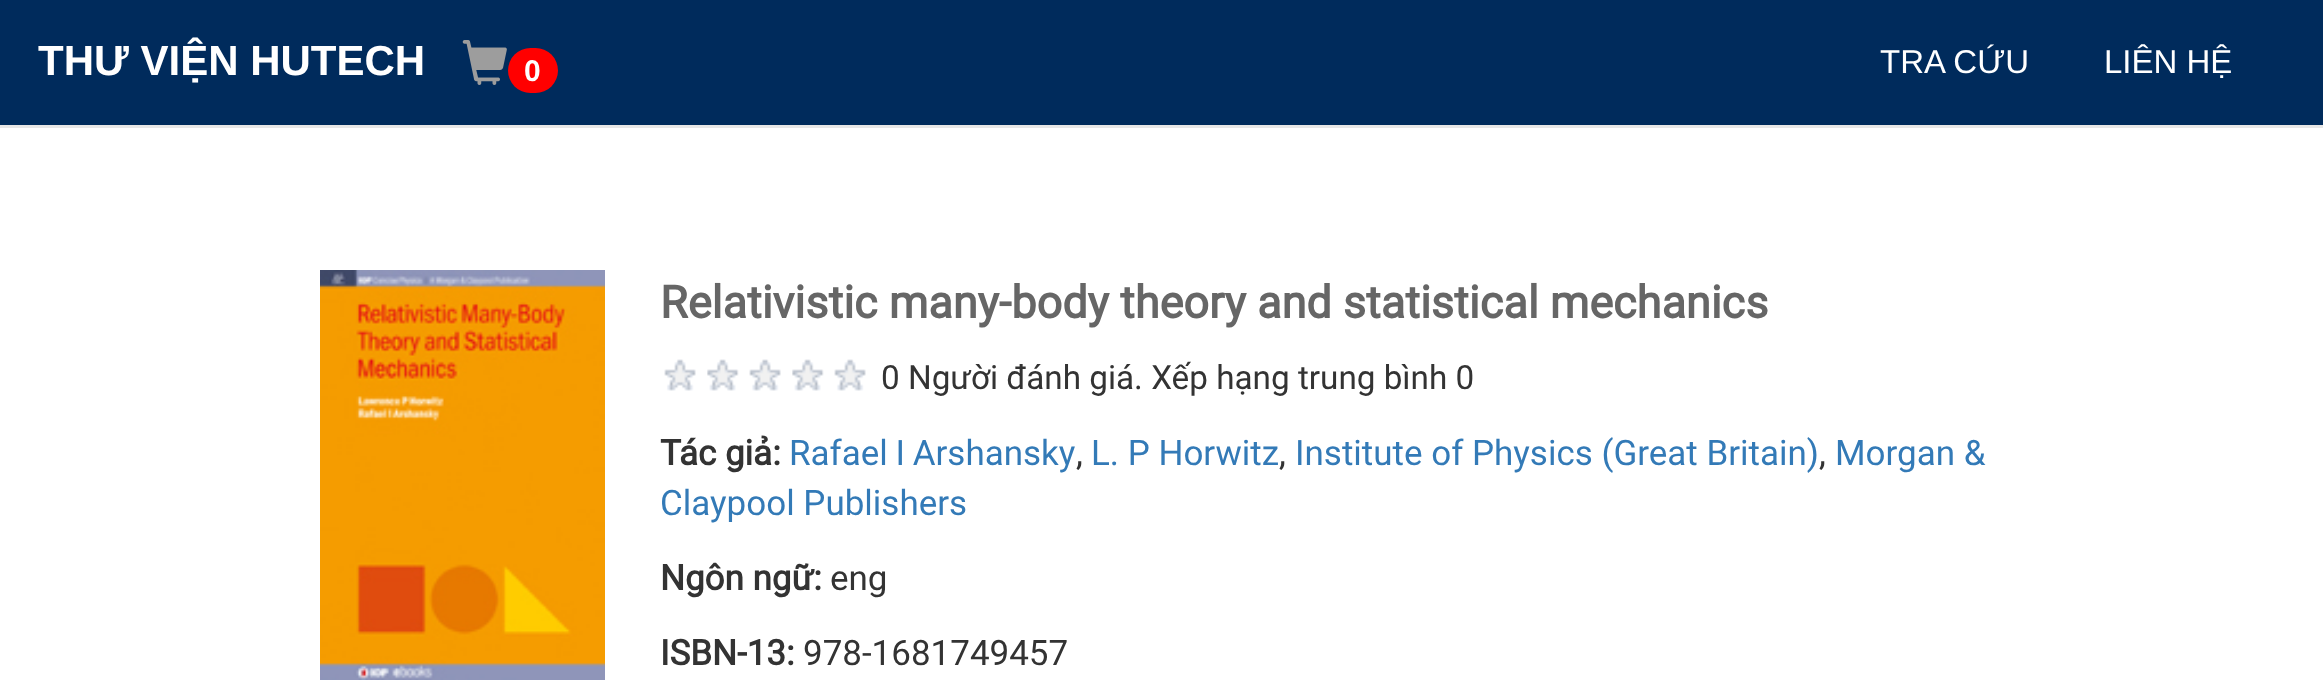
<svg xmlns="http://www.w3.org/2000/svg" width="2323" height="696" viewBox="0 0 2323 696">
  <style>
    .t1 { font: bold 42px Liberation Sans; fill: #fff; }
    .t2 { font: bold 30px Liberation Sans; fill: #fff; }
    .t3 { font: 33px Liberation Sans; fill: #fff; }
    .t4 { font: bold 45px Roboto; fill: #666; }
    .t5 { font: 33.3px Roboto; fill: #333; }
    .t6 { font: bold 35px Roboto; fill: #333; }
    .t7 { font: 35px Roboto; fill: #337ab7; }
    .t8 { font: 35px Roboto; fill: #333; }
  </style>
  <rect width="100%" height="100%" fill="#fff"/>
  <rect x="0" y="0" width="2323" height="125" fill="#002b5c"/>
  <rect x="0" y="125" width="2323" height="3" fill="#e7e7e7"/>
  <text x="38" y="75" class="t1">THƯ VIỆN HUTECH</text>
  <image x="462" y="40" width="45" height="45" href="images/1.png"/>
  <rect x="508" y="48" width="50" height="45" rx="22.5" fill="#f00"/>
  <text x="524" y="81" class="t2">0</text>
  <text x="1880" y="73" class="t3">TRA CỨU</text>
  <text x="2104" y="73" class="t3">LIÊN HỆ</text>
  <image x="320" y="270" width="285" height="410" href="images/2.png"/>
  <text x="660" y="318" class="t4">Relativistic many-body theory and statistical mechanics</text>
  <image x="664" y="359" width="32" height="32" href="images/3.png"/>
  <image x="707" y="359" width="32" height="32" href="images/4.png"/>
  <image x="749" y="359" width="32" height="32" href="images/5.png"/>
  <image x="792" y="359" width="32" height="32" href="images/4.png"/>
  <image x="834" y="359" width="32" height="32" href="images/6.png"/>
  <text x="881" y="389" class="t5">0 Người đánh giá. Xếp hạng trung bình 0</text>
  <text x="660" y="465" class="t6">Tác giả:</text>
  <text x="789" y="465" word-spacing="-1" class="t7">Rafael I Arshansky</text>
  <text x="1076" y="465" class="t8">,</text>
  <text x="1091" y="465" class="t7">L. P Horwitz</text>
  <text x="1279" y="465" class="t8">,</text>
  <text x="1295" y="465" class="t7">Institute of Physics (Great Britain)</text>
  <text x="1819" y="465" class="t8">,</text>
  <text x="1835" y="465" class="t7">Morgan &amp;</text>
  <text x="660" y="515" class="t7">Claypool Publishers</text>
  <text x="660" y="590" class="t6">Ngôn ngữ:</text>
  <text x="830" y="590" class="t8">eng</text>
  <text x="660" y="665" class="t6">ISBN-13:</text>
  <text x="803" y="665" class="t8">978-1681749457</text>
</svg>
